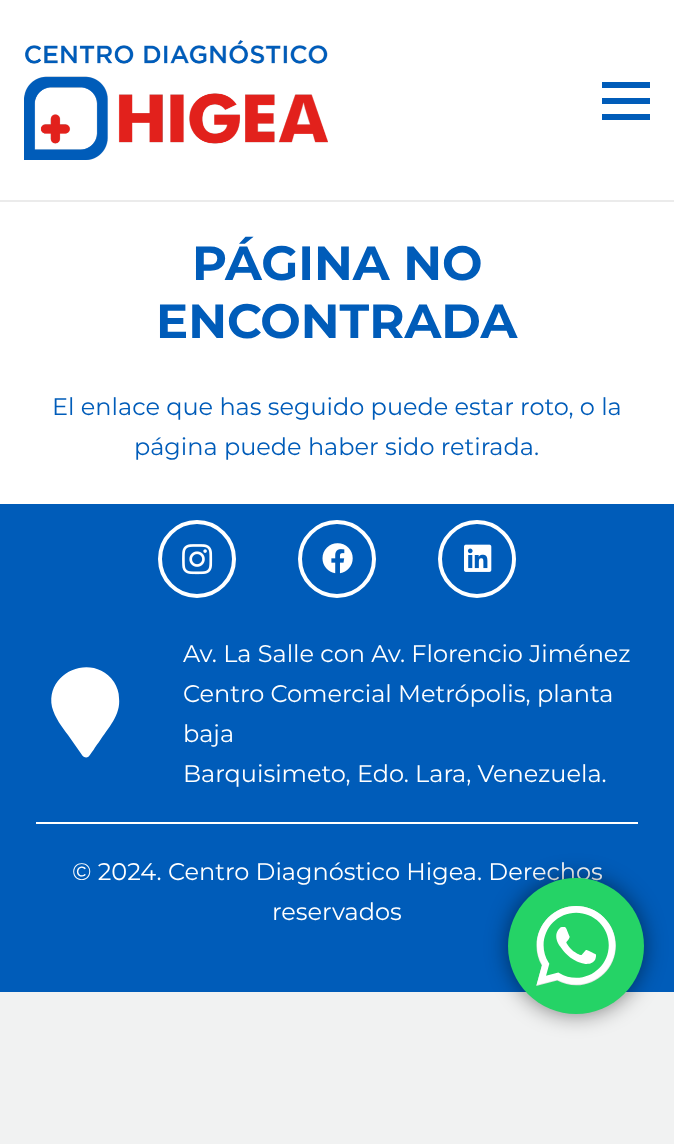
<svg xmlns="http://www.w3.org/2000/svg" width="674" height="1144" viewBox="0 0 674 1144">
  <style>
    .t1 { font: bold 48px Montserrat; fill: #005cb9; }
    .t2 { font: 24px Montserrat; fill: #005cb9; }
    .t3 { font: 24px Montserrat; fill: #fff; }
  </style>
  <rect width="100%" height="100%" fill="#f1f2f2"/>
  <rect x="0" y="0" width="674" height="504" fill="#fff"/>
  <rect x="0" y="200" width="674" height="2" fill="#ebebeb"/>
  <image x="24" y="40" width="304" height="120" href="images/1.png"/>
  <rect x="602" y="98" width="48" height="6" fill="#005cb9"/>
  <rect x="602" y="82" width="48" height="6" fill="#005cb9"/>
  <rect x="602" y="114" width="48" height="6" fill="#005cb9"/>
  <text x="192" y="280" class="t1">PÁGINA NO</text>
  <text x="156" y="338" class="t1">ENCONTRADA</text>
  <text x="52" y="415" class="t2">El enlace que has seguido puede estar roto, o la</text>
  <text x="134" y="455" class="t2">página puede haber sido retirada.</text>
  <rect x="0" y="504" width="674" height="488" fill="#005cb9"/>
  <circle cx="197" cy="559" r="37" fill="none" stroke="#fff" stroke-width="4"/>
  <image x="182" y="544" width="31" height="31" href="images/2.png"/>
  <circle cx="337" cy="559" r="37" fill="none" stroke="#fff" stroke-width="4"/>
  <image x="322" y="543" width="31" height="31" href="images/3.png"/>
  <circle cx="477" cy="559" r="37" fill="none" stroke="#fff" stroke-width="4"/>
  <image x="464" y="544" width="28" height="28" href="images/4.png"/>
  <path d="M82 755L68 735C62 727 55 718 52 707C45 672 93 652 114 682C117 687 119 692 119 698C121 715 108 728 99 742C97 744 90 756 88 757C86 758 83 757 82 755Z" fill="#fff"/>
  <text x="183" y="662" class="t3">Av. La Salle con Av. Florencio Jiménez</text>
  <text x="183" y="702" class="t3">Centro Comercial Metrópolis, planta</text>
  <text x="183" y="742" class="t3">baja</text>
  <text x="183" y="782" class="t3">Barquisimeto, Edo. Lara, Venezuela.</text>
  <rect x="36" y="822" width="602" height="2" fill="#fff"/>
  <text x="72" y="880" class="t3">© 2024. Centro Diagnóstico Higea. Derechos</text>
  <text x="272" y="920" class="t3">reservados</text>
  <rect x="508" y="878" width="136" height="136" rx="68" fill="#00000080" filter="blur(11px)"/>
  <circle cx="576" cy="946" r="68" fill="#25d366"/>
  <image x="536" y="906" width="80" height="80" href="images/5.png"/>
</svg>
